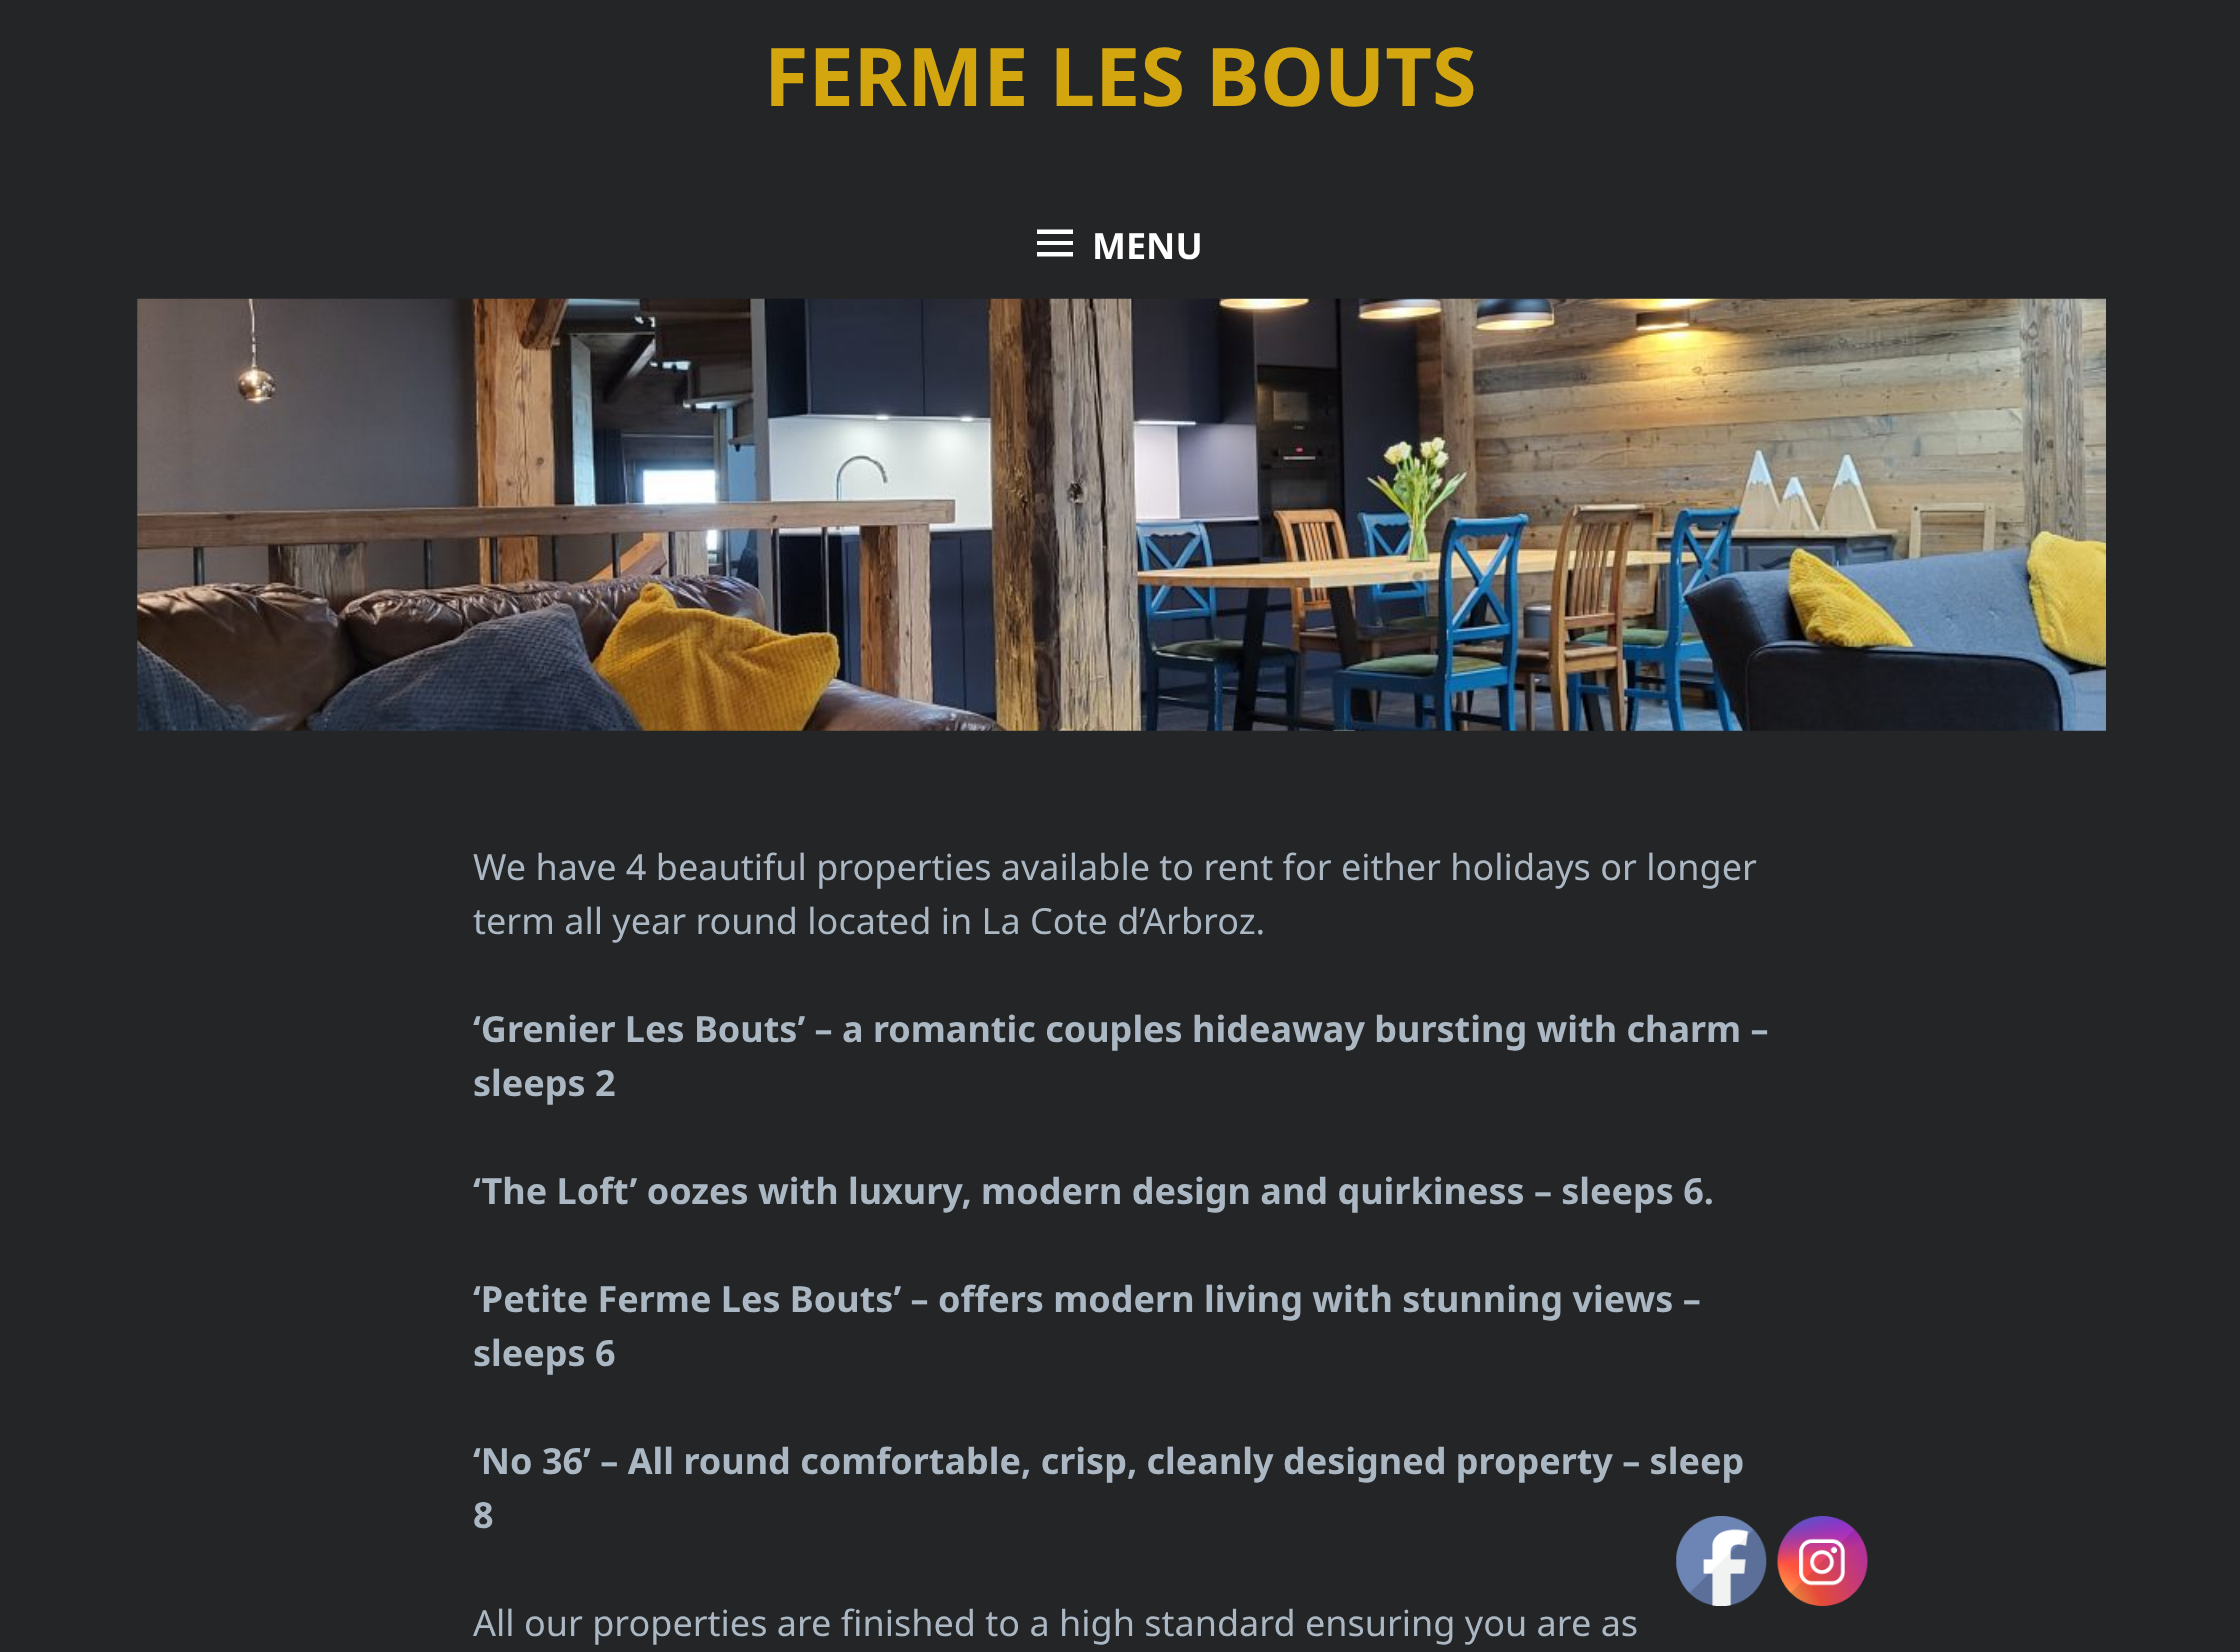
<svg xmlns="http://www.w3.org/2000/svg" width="2240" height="1652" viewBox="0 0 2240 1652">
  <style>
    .t1 { font: bold 81px Noto Sans; fill: #d3a610; }
    .t2 { font: bold 36px Noto Sans; fill: #fff; }
    .t3 { font: 36px Noto Sans; fill: #abb8c3; }
    .t4 { font: bold 36px Noto Sans; fill: #abb8c3; }
  </style>
  <rect width="100%" height="100%" fill="#242526"/>
  <text x="764" y="106" class="t1">FERME LES BOUTS</text>
  <path d="M1037 256.5V252H1073V256.5ZM1037 229.5H1073V234H1037ZM1037 245V241H1073V245Z" fill="#fff"/>
  <text x="1092" y="259" class="t2">MENU</text>
  <image x="137" y="298" width="1969" height="433" href="images/1.png"/>
  <text x="473" y="880" class="t3">We have 4 beautiful properties available to rent for either holidays or longer</text>
  <text x="473" y="934" class="t3">term all year round located in La Cote d’Arbroz.</text>
  <text x="473" y="1042" class="t4">‘Grenier Les Bouts’ – a romantic couples hideaway bursting with charm –</text>
  <text x="473" y="1096" class="t4">sleeps 2</text>
  <text x="473" y="1204" class="t4">‘The Loft’ oozes with luxury, modern design and quirkiness – sleeps 6.</text>
  <text x="473" y="1312" class="t4">‘Petite Ferme Les Bouts’ – offers modern living with stunning views –</text>
  <text x="473" y="1366" class="t4">sleeps 6</text>
  <text x="473" y="1474" class="t4">‘No 36’ – All round comfortable, crisp, cleanly designed property – sleep</text>
  <text x="473" y="1528" class="t4">8</text>
  <text x="473" y="1636" class="t3">All our properties are finished to a high standard ensuring you are as</text>
  <image x="1676" y="1516" width="91" height="90" href="images/2.png"/>
  <image x="1777" y="1516" width="91" height="90" href="images/3.png"/>
</svg>
